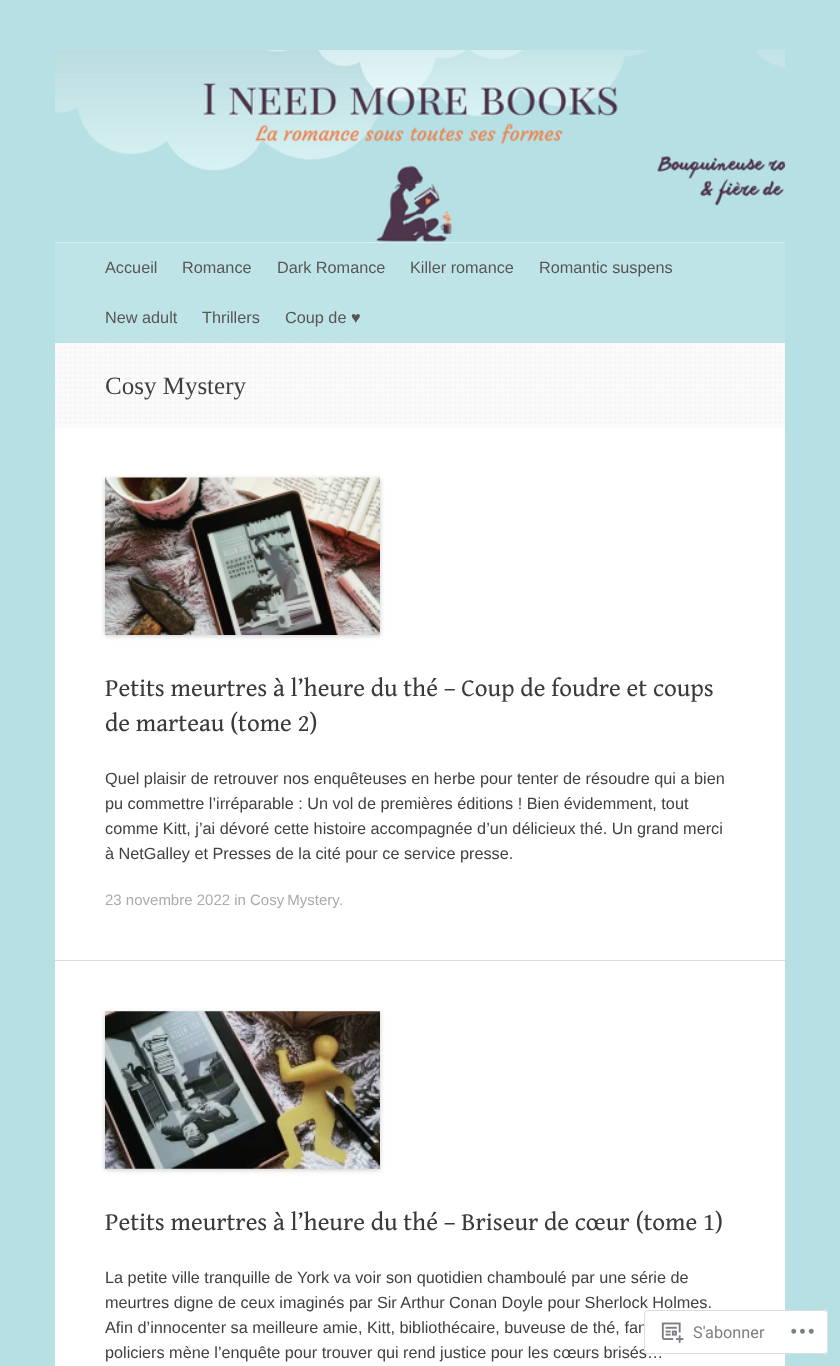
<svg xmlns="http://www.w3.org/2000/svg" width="840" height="1366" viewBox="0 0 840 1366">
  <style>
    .t1 { font: 16.25px Liberation Sans; fill: #565656; }
    .t2 { font: 25px Liberation Serif; fill: #404040; }
    .t3 { font: 25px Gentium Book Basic; fill: #3a3a3a; }
    .t4 { font: 16.25px Liberation Sans; fill: #404040; }
    .t5 { font: 15px Liberation Sans; fill: #aaa; }
    .t6 { font: 16.25px Roboto; fill: #7b7f84; }
  </style>
  <rect width="100%" height="100%" fill="#b6e0e4"/>
  <rect x="55" y="242" width="730" height="1124" fill="#fff"/>
  <image x="55" y="50" width="730" height="193" href="images/1.png"/>
  <rect x="55" y="243" width="730" height="100" fill="#bfe4e7"/>
  <text x="105" y="273" class="t1">Accueil</text>
  <text x="182" y="273" class="t1">Romance</text>
  <text x="277" y="273" class="t1">Dark Romance</text>
  <text x="410" y="273" class="t1">Killer romance</text>
  <text x="539" y="273" class="t1">Romantic suspens</text>
  <image x="55" y="342" width="730" height="86" href="images/2.png"/>
  <rect x="94" y="342" width="178" height="1" fill="#bfe4e7"/>
  <text x="105" y="323" class="t1">New adult</text>
  <text x="202" y="323" class="t1">Thrillers</text>
  <rect x="274" y="342" width="98" height="1" fill="#bfe4e7"/>
  <text x="285" y="323" class="t1">Coup de ♥</text>
  <text x="105" y="394" class="t2">Cosy Mystery</text>
  <rect x="55" y="960" width="730" height="1" fill="#ddd"/>
  <rect x="105" y="479" width="275" height="157" fill="#00000033" filter="blur(2.5px)"/>
  <image x="105" y="477" width="275" height="158" href="images/3.png"/>
  <text x="105" y="696" class="t3">Petits meurtres à l’heure du thé – Coup de foudre et coups</text>
  <text x="105" y="731" class="t3">de marteau (tome 2)</text>
  <text x="105" y="784" class="t4">Quel plaisir de retrouver nos enquêteuses en herbe pour tenter de résoudre qui a bien</text>
  <text x="105" y="809" class="t4">pu commettre l’irréparable : Un vol de premières éditions ! Bien évidemment, tout</text>
  <text x="105" y="834" class="t4">comme Kitt, j’ai dévoré cette histoire accompagnée d’un délicieux thé. Un grand merci</text>
  <text x="105" y="859" class="t4">à NetGalley et Presses de la cité pour ce service presse.</text>
  <text x="105" y="905" class="t5">23 novembre 2022 in</text>
  <text x="250" y="905" word-spacing="-1" class="t5">Cosy Mystery</text>
  <text x="339" y="905" class="t5">.</text>
  <rect x="105" y="1013" width="275" height="157" fill="#00000033" filter="blur(2.5px)"/>
  <image x="105" y="1011" width="275" height="158" href="images/4.png"/>
  <text x="105" y="1230" class="t3">Petits meurtres à l’heure du thé – Briseur de cœur (tome 1)</text>
  <text x="105" y="1283" class="t4">La petite ville tranquille de York va voir son quotidien chamboulé par une série de</text>
  <text x="105" y="1308" class="t4">meurtres digne de ceux imaginés par Sir Arthur Conan Doyle pour Sherlock Holmes.</text>
  <text x="105" y="1333" class="t4">Afin d’innocenter sa meilleure amie, Kitt, bibliothécaire, buveuse de thé, fan</text>
  <text x="105" y="1358" class="t4">policiers mène l’enquête pour trouver qui rend justice pour les cœurs brisés…</text>
  <rect x="644" y="1310" width="184" height="44" rx="4" fill="#fffffffa"/>
  <rect x="644.5" y="1310.5" width="183" height="43" rx="3.5" fill="none" stroke="#dcdcdefa"/>
  <image x="661" y="1322" width="23" height="21" href="images/5.png"/>
  <text x="693" y="1338" class="t6">S'abonner</text>
  <image x="791" y="1328" width="23" height="6" href="images/6.png"/>
</svg>
